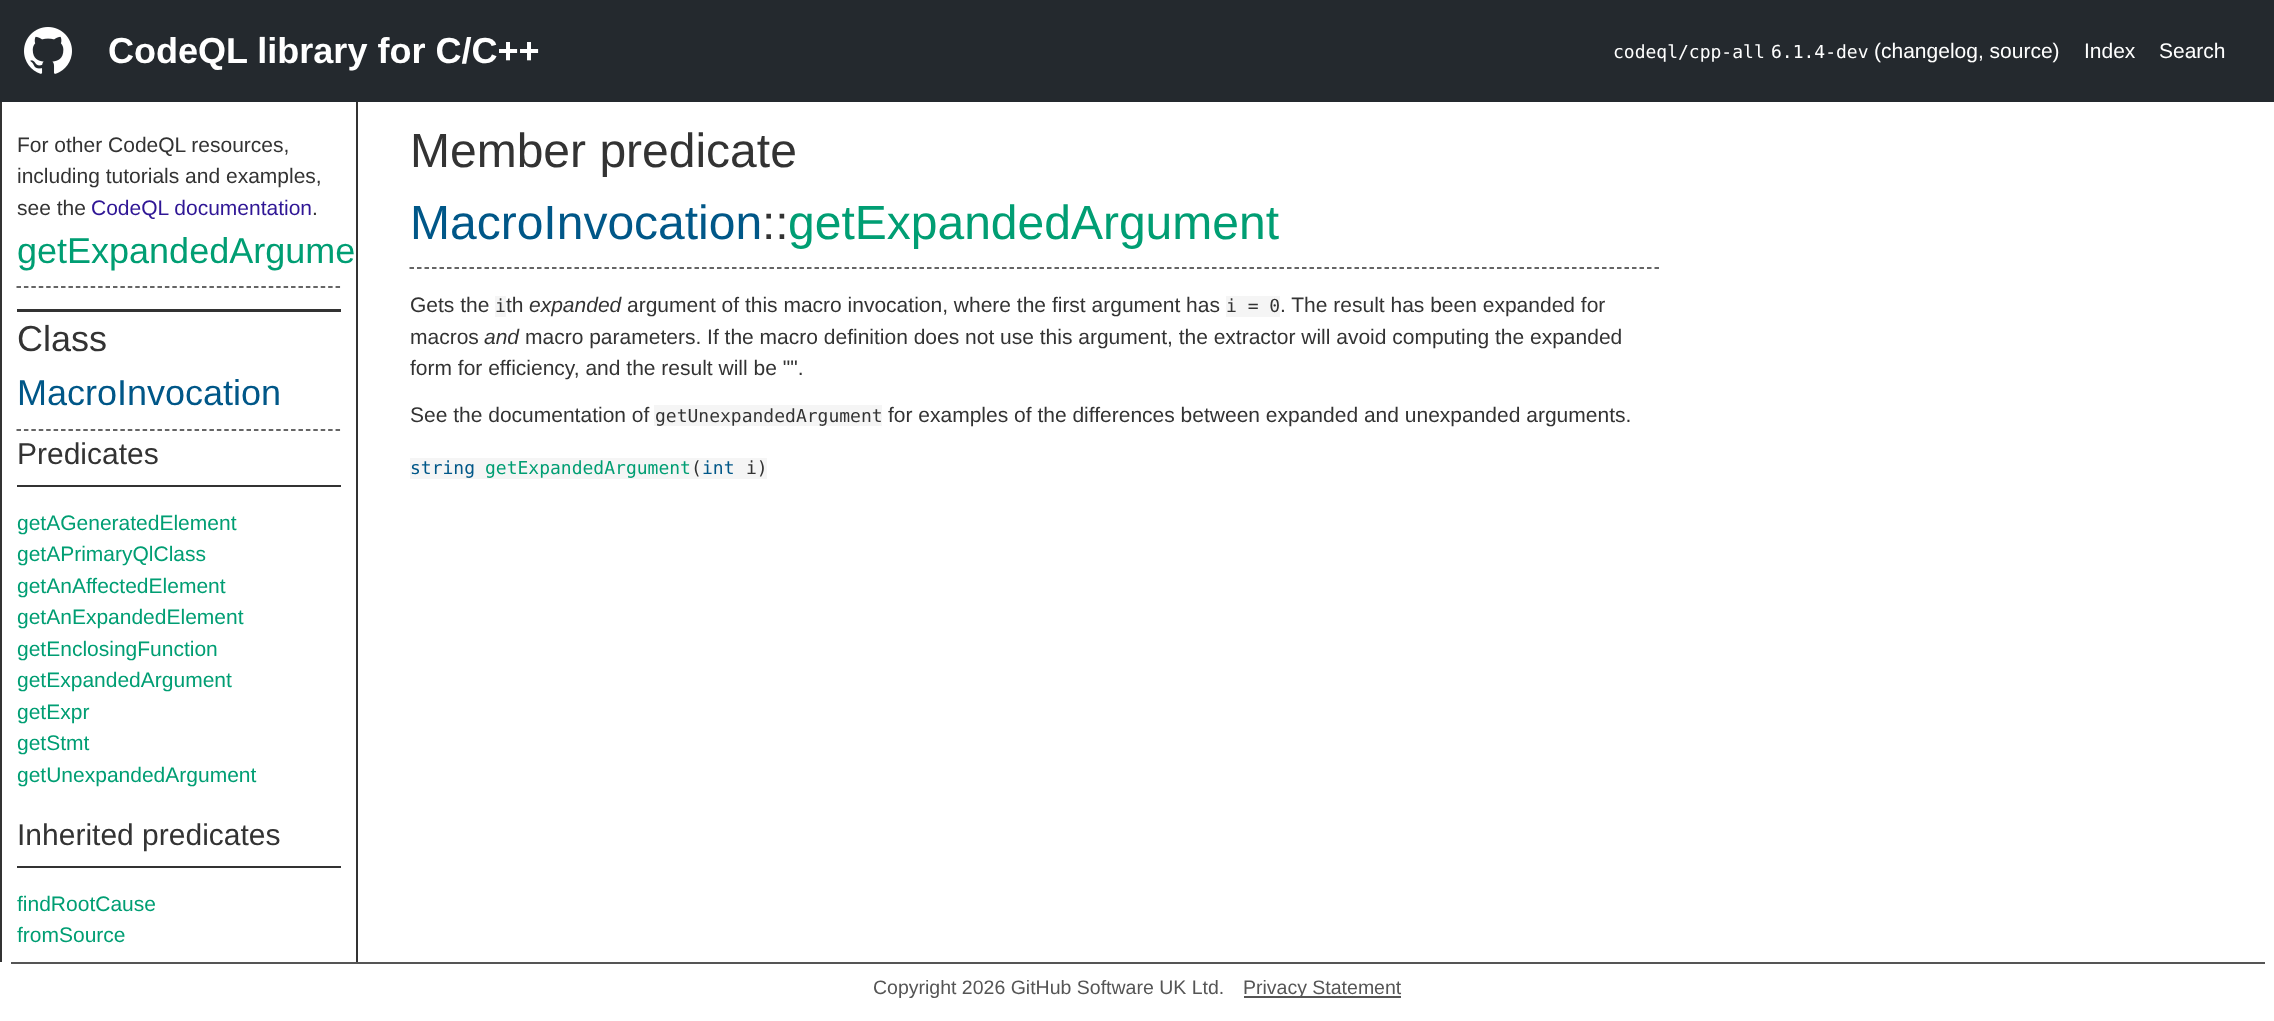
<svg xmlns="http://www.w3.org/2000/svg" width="2274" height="1021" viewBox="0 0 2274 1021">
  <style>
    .t1 { font: bold 36px Liberation Sans; fill: #fff; }
    .t2 { font: 18px DejaVu Sans Mono; fill: #fff; }
    .t3 { font: 21px Liberation Sans; fill: #fff; }
    .t4 { font: 21px Liberation Sans; fill: #333; }
    .t5 { font: 21px Liberation Sans; fill: #2f1695; }
    .t6 { font: 36px Liberation Sans; fill: #009e73; }
    .t7 { font: 36px Liberation Sans; fill: #333; }
    .t8 { font: 36px Liberation Sans; fill: #005788; }
    .t9 { font: 30px Liberation Sans; fill: #333; }
    .t10 { font: 21px Liberation Sans; fill: #009e73; }
    .t11 { font: 48px Liberation Sans; fill: #333; }
    .t12 { font: 48px Liberation Sans; fill: #005788; }
    .t13 { font: 48px Liberation Sans; fill: #009e73; }
    .t14 { font: 18px DejaVu Sans Mono; fill: #333; }
    .t15 { font: italic 21px Liberation Sans; fill: #333; }
    .t16 { font: 18px DejaVu Sans Mono; fill: #005788; }
    .t17 { font: 18px DejaVu Sans Mono; fill: #009e73; }
    .t18 { font: 19.5px Liberation Sans; fill: #555; }
  </style>
  <rect width="100%" height="100%" fill="#fff"/>
  <rect x="0" y="0" width="2274" height="102" fill="#24292e"/>
  <image x="24" y="27" width="48" height="47" href="images/1.png"/>
  <text x="108" y="63" class="t1">CodeQL library for C/C++</text>
  <text x="1613" y="58" class="t2">codeql/cpp-all</text>
  <text x="1771" y="58" class="t2">6.1.4-dev</text>
  <text x="1874" y="58" class="t3">(changelog, source)</text>
  <text x="2084" y="58" class="t3">Index</text>
  <text x="2159" y="58" class="t3">Search</text>
  <rect x="356" y="102" width="2" height="860" fill="#333"/>
  <rect x="0" y="102" width="2" height="860" fill="#333"/>
  <rect x="17" y="309" width="324" height="3" fill="#333"/>
  <text x="17" y="152" class="t4">For other CodeQL resources,</text>
  <text x="17" y="183" class="t4">including tutorials and examples,</text>
  <text x="17" y="215" class="t4">see the</text>
  <text x="91" y="215" class="t5">CodeQL documentation</text>
  <text x="312" y="215" class="t4">.</text>
  <path d="M16.5 287H340.5" fill="none" stroke="#333" stroke-width="1.5" stroke-dasharray="4.5 2.92"/>
  <text x="17" y="263" class="t6">getExpandedArgume</text>
  <path d="M16.5 430H340.5" fill="none" stroke="#333" stroke-width="1.5" stroke-dasharray="4.5 2.92"/>
  <text x="17" y="351" class="t7">Class</text>
  <text x="17" y="405" class="t8">MacroInvocation</text>
  <rect x="17" y="485" width="324" height="2" fill="#333"/>
  <text x="17" y="464" class="t9">Predicates</text>
  <text x="17" y="530" class="t10">getAGeneratedElement</text>
  <text x="17" y="561" class="t10">getAPrimaryQlClass</text>
  <text x="17" y="593" class="t10">getAnAffectedElement</text>
  <text x="17" y="624" class="t10">getAnExpandedElement</text>
  <text x="17" y="656" class="t10">getEnclosingFunction</text>
  <text x="17" y="687" class="t10">getExpandedArgument</text>
  <text x="17" y="719" class="t10">getExpr</text>
  <text x="17" y="750" class="t10">getStmt</text>
  <text x="17" y="782" class="t10">getUnexpandedArgument</text>
  <rect x="17" y="866" width="324" height="2" fill="#333"/>
  <text x="17" y="845" class="t9">Inherited predicates</text>
  <text x="17" y="911" class="t10">findRootCause</text>
  <text x="17" y="942" class="t10">fromSource</text>
  <path d="M409.5 268H1659" fill="none" stroke="#333" stroke-width="1.5" stroke-dasharray="4.5 3"/>
  <text x="410" y="167" class="t11">Member predicate</text>
  <text x="410" y="239" class="t12">MacroInvocation</text>
  <text x="762" y="239" class="t11">::</text>
  <text x="788" y="239" class="t13">getExpandedArgument</text>
  <text x="410" y="312" class="t4">Gets the</text>
  <rect x="495" y="296" width="11" height="21" fill="#f5f5f5"/>
  <text x="495" y="312" class="t14">i</text>
  <text x="506" y="312" class="t4">th</text>
  <text x="529" y="312" class="t15">expanded</text>
  <text x="627" y="312" class="t4">argument of this macro invocation, where the first argument has</text>
  <rect x="1226" y="296" width="54" height="21" fill="#f5f5f5"/>
  <text x="1226" y="312" class="t14">i = 0</text>
  <text x="1280" y="312" class="t4">. The result has been expanded for</text>
  <text x="410" y="344" class="t4">macros</text>
  <text x="484" y="344" class="t15">and</text>
  <text x="525" y="344" class="t4">macro parameters. If the macro definition does not use this argument, the extractor will avoid computing the expanded</text>
  <text x="410" y="375" class="t4">form for efficiency, and the result will be "".</text>
  <text x="410" y="422" class="t4">See the documentation of</text>
  <rect x="654" y="405" width="228" height="21" fill="#f5f5f5"/>
  <text x="655" y="422" class="t14">getUnexpandedArgument</text>
  <text x="888" y="422" class="t4">for examples of the differences between expanded and unexpanded arguments.</text>
  <rect x="410" y="458" width="357" height="21" fill="#f5f5f5"/>
  <text x="410" y="474" class="t16">string</text>
  <text x="485" y="474" class="t17">getExpandedArgument</text>
  <text x="691" y="474" class="t14">(</text>
  <text x="702" y="474" class="t16">int</text>
  <text x="746" y="474" class="t14">i)</text>
  <rect x="11" y="962" width="2254" height="2" fill="#555"/>
  <text x="873" y="994" class="t18">Copyright 2026 GitHub Software UK Ltd.</text>
  <rect x="1244" y="996" width="157" height="2" fill="#555"/>
  <text x="1243" y="994" class="t18">Privacy Statement</text>
</svg>
